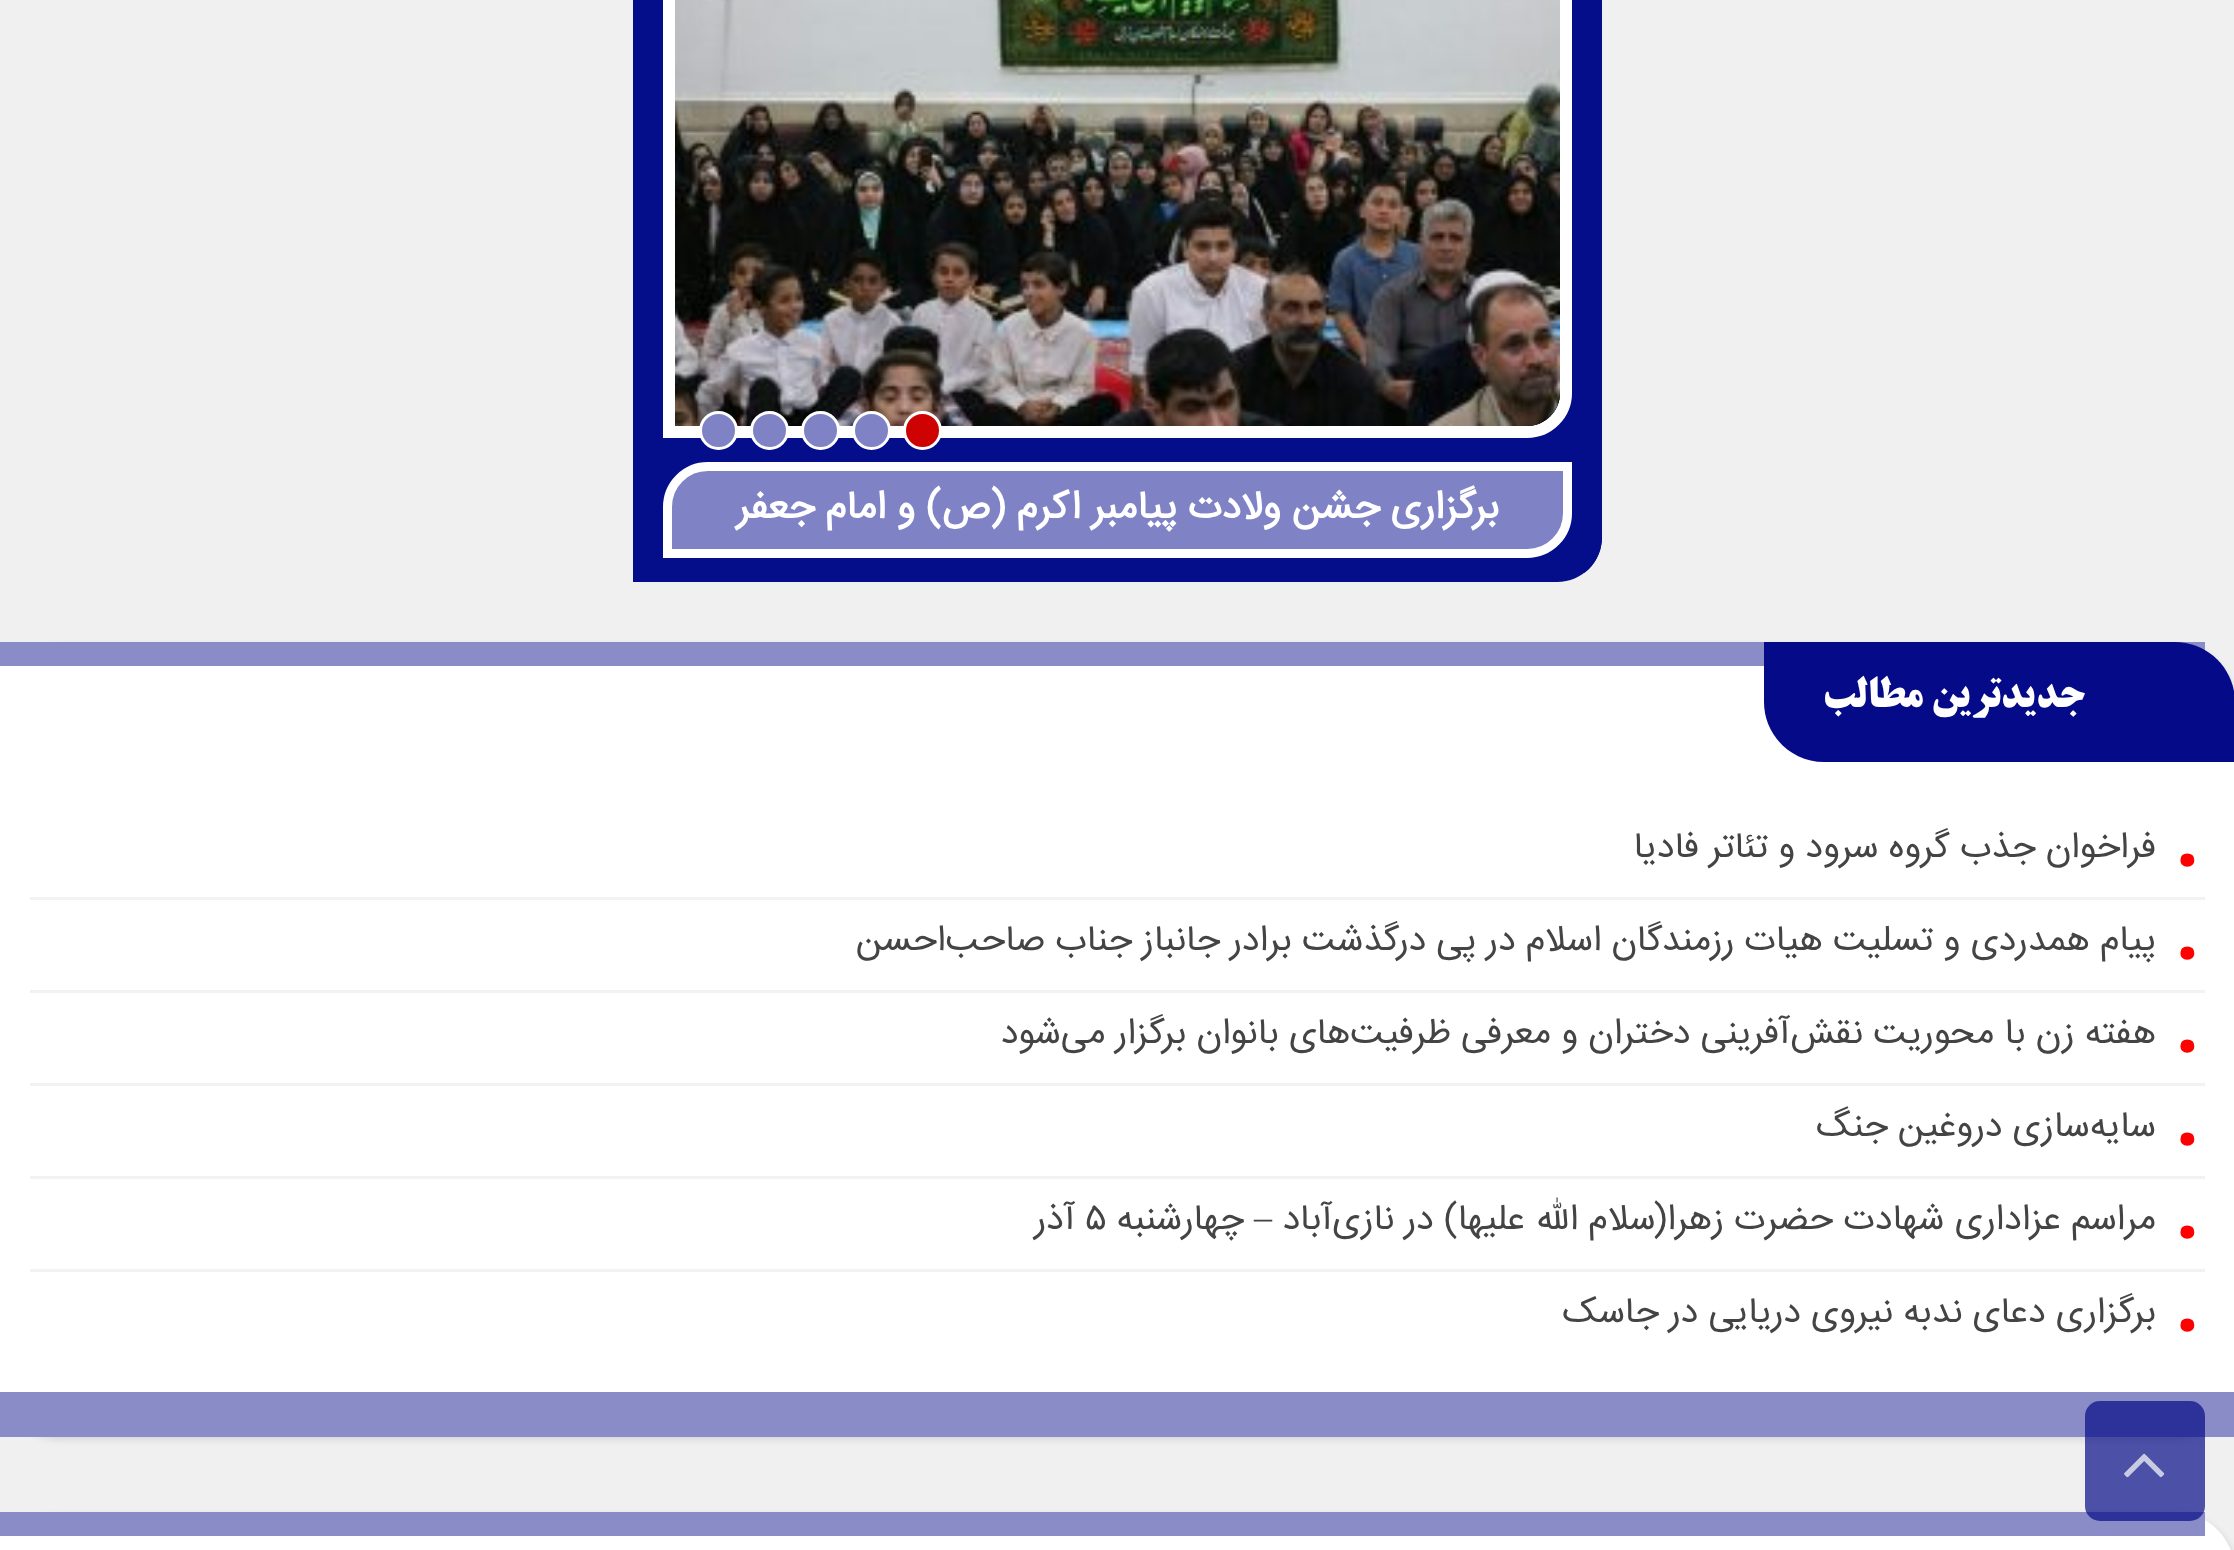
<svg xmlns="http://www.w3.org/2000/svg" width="2234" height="1550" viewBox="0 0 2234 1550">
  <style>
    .t1 { font: bold 39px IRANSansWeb; direction: rtl; fill: #fff; }
    .t2 { font: bold 42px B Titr; direction: rtl; fill: #fff; }
    .t3 { font: 120px IRANSansWeb; fill: #f00; }
    .t4 { font: 36px IRANSansWeb; direction: rtl; fill: #444; }
    .t5 { font: 36px Liberation Serif; direction: rtl; fill: #444; }
    .t6 { font: 36px IRANSansWeb; fill: #444; }
  </style>
  <defs>
    <clipPath id="clip1"><path d="M678-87H1602V537C1602 562 1582 582 1557 582H633V-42C633-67 653-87 678-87Z"/></clipPath>
  </defs>
  <rect width="100%" height="100%" fill="#f0f0f0"/>
  <path d="M678-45H1602V537C1602 562 1582 582 1557 582H633V0C633-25 653-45 678-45Z" fill="#040e8a"/>
  <g clip-path="url(#clip1)">
    <path d="M678-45H1602V573H633V0C633-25 653-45 678-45Z" fill="#040e8a"/>
  </g>
  <path d="M708-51H1566V393C1566 414.5 1548.5 432 1527 432H669V-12C669-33.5 686.5-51 708-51Z" fill="none" stroke="#fff" stroke-width="12"/>
  <path d="M708-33H1560V393C1560 411 1545 426 1527 426H675V0C675-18 690-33 708-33Z" fill="#000"/>
  <image x="675" y="0" width="885" height="426" href="images/1.png"/>
  <circle cx="922.5" cy="430.5" r="18" fill="#ce0202" stroke="#fff" stroke-width="3"/>
  <circle cx="871.5" cy="430.5" r="18" fill="#7f82c5" stroke="#fff" stroke-width="3"/>
  <circle cx="820.5" cy="430.5" r="18" fill="#7f82c5" stroke="#fff" stroke-width="3"/>
  <circle cx="769.5" cy="430.5" r="18" fill="#7f82c5" stroke="#fff" stroke-width="3"/>
  <circle cx="718.5" cy="430.5" r="18" fill="#7f82c5" stroke="#fff" stroke-width="3"/>
  <path d="M708 466.5H1567.5V513C1567.5 535.5 1549.5 553.5 1527 553.5H667.5V507C667.5 484.5 685.5 466.5 708 466.5Z" fill="#7f82c5" stroke="#fff" stroke-width="9"/>
  <text x="1499" y="518" class="t1">برگزاری جشن ولادت پیامبر اکرم (ص) و امام جعفر</text>
  <rect x="0" y="645" width="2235" height="795" rx="60" fill="#0000001a" filter="blur(3px)"/>
  <path d="M0 642H2175C2208 642 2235 669 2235 702V1437H0Z" fill="#fff"/>
  <rect x="0" y="642" width="2205" height="24" fill="#898cc7"/>
  <rect x="0" y="1392" width="2234" height="45" fill="#898cc7"/>
  <path d="M1764 642H2175C2208 642 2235 669 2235 702V762H1824C1791 762 1764 735 1764 702Z" fill="#050b88"/>
  <text x="2085" y="707" class="t2">جدیدترین مطالب</text>
  <rect x="30" y="897" width="2175" height="3" fill="#f2f2f2"/>
  <text x="2171" y="860" class="t3">.</text>
  <text x="2156" y="857" class="t4">فراخوان جذب گروه سرود و تئاتر فادیا</text>
  <rect x="30" y="990" width="2175" height="3" fill="#f2f2f2"/>
  <text x="2171" y="953" class="t3">.</text>
  <text x="2156" y="950" class="t4">پیام همدردی و تسلیت هیات رزمندگان اسلام در پی درگذشت برادر جانباز جناب صاحب‌احسن</text>
  <rect x="30" y="1083" width="2175" height="3" fill="#f2f2f2"/>
  <text x="2171" y="1046" class="t3">.</text>
  <text x="2156" y="1043" class="t4">هفته زن با محوریت نقش‌آفرینی دختران و معرفی ظرفیت‌های بانوان برگزار می‌شود</text>
  <rect x="30" y="1176" width="2175" height="3" fill="#f2f2f2"/>
  <text x="2171" y="1139" class="t3">.</text>
  <text x="2156" y="1136" class="t4">سایه‌سازی دروغین جنگ</text>
  <rect x="30" y="1269" width="2175" height="3" fill="#f2f2f2"/>
  <text x="2171" y="1232" class="t3">.</text>
  <text x="2156" y="1229" class="t4">مراسم عزاداری شهادت حضرت زهرا(سلام الله علیها) در نازی‌آباد</text>
  <text x="1272" y="1229" class="t5">–</text>
  <text x="1244" y="1229" class="t4">چهارشنبه</text>
  <text x="1085" y="1229" class="t6">۵</text>
  <text x="1075" y="1229" class="t4">آذر</text>
  <text x="2171" y="1325" class="t3">.</text>
  <text x="2156" y="1322" class="t4">برگزاری دعای ندبه نیروی دریایی در جاسک</text>
  <rect x="0" y="1515" width="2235" height="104" rx="60" fill="#0000001a" filter="blur(3px)"/>
  <path d="M0 1512H2175C2208 1512 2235 1539 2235 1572V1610H0Z" fill="#fff"/>
  <rect x="0" y="1512" width="2205" height="24" fill="#898cc7"/>
  <rect x="2085" y="1401" width="120" height="120" rx="15" fill="#050b88b3"/>
  <image x="2124" y="1453" width="41" height="25" href="images/2.png"/>
</svg>
